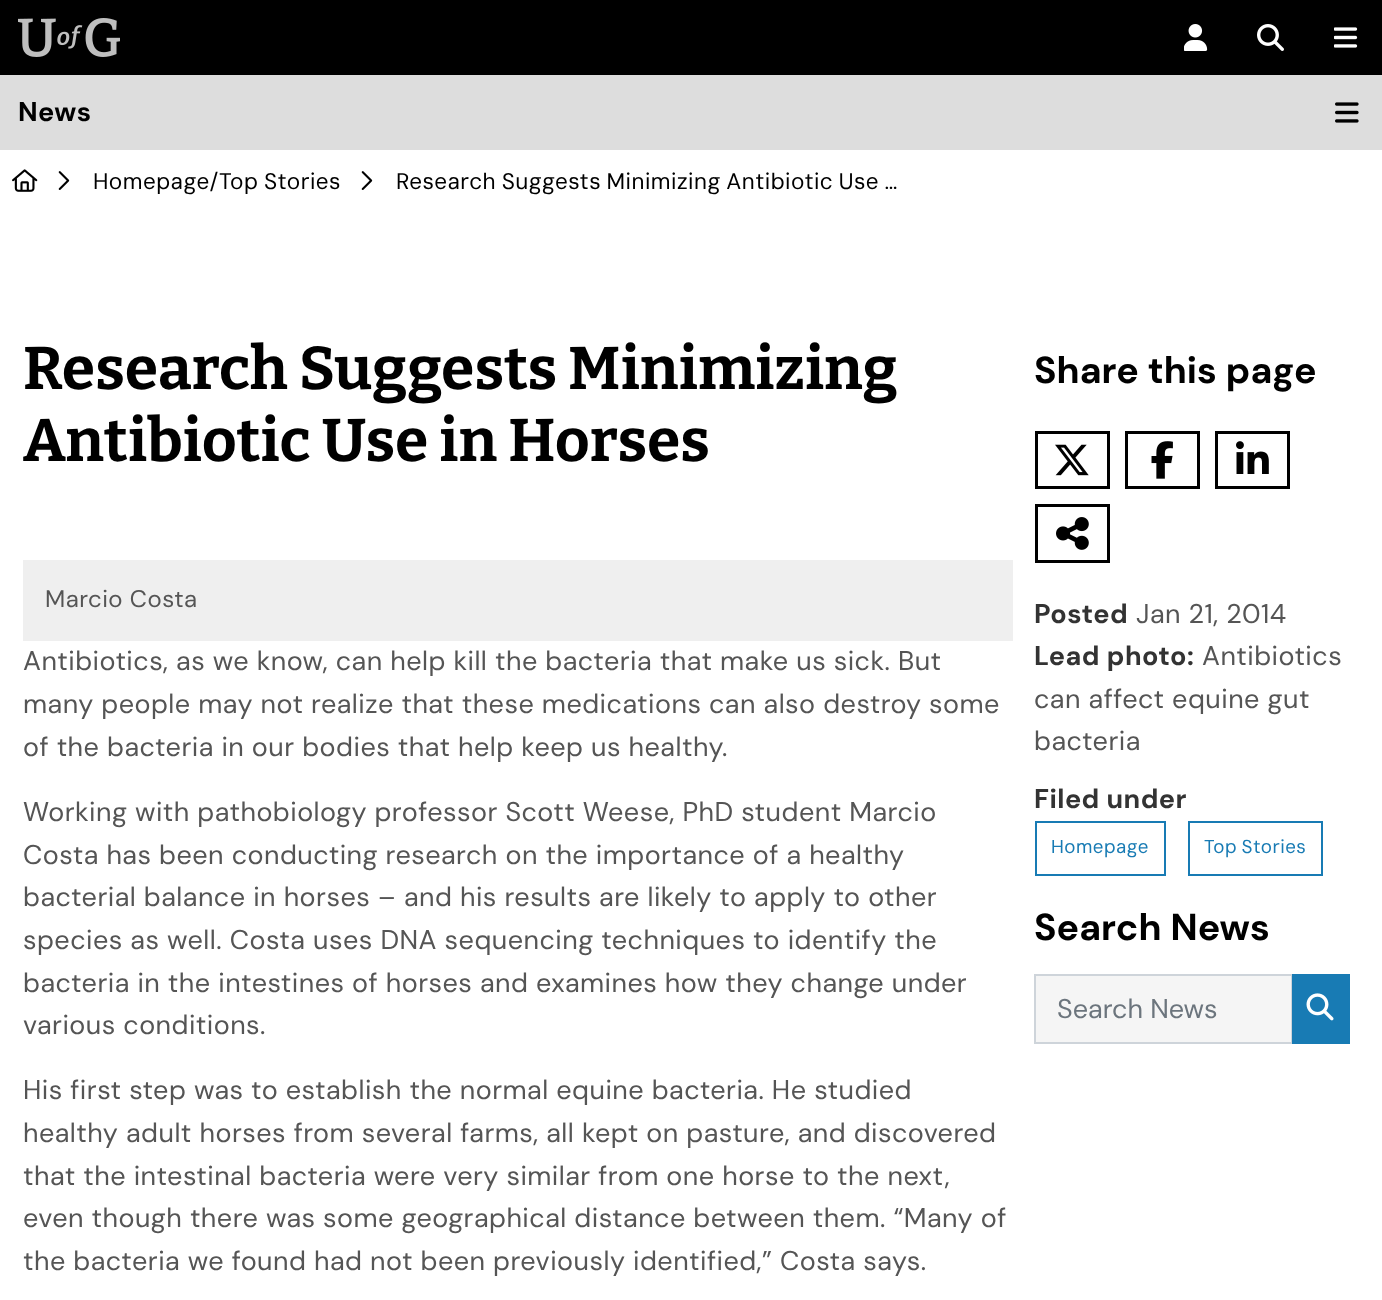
<svg xmlns="http://www.w3.org/2000/svg" width="1382" height="1300" viewBox="0 0 1382 1300">
  <style>
    .t1 { font: bold 27px 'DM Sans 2'; letter-spacing: 0.45px; fill: #000; }
    .t2 { font: 22.5px 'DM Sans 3'; letter-spacing: 0.45px; fill: #000; }
    .t3 { font: 100 60px Bitter; letter-spacing: 0.15px; fill: #000; }
    .t4 { font: 24px DM Sans; letter-spacing: 0.45px; fill: #555; }
    .t5 { font: 27px 'DM Sans 2'; letter-spacing: 0.45px; fill: #555; }
    .t6 { font: bold 37.5px DM Sans; letter-spacing: 0.15px; fill: #000; }
    .t7 { font: bold 27px 'DM Sans 2'; letter-spacing: 0.45px; fill: #333; }
    .t8 { font: 18.75px 'DM Sans 3'; letter-spacing: 0.45px; fill: #187bb4; }
    .t9 { font: 27px 'DM Sans 2'; fill: #6c757d; }
  </style>
  <rect width="100%" height="100%" fill="#fff"/>
  <rect x="0" y="0" width="1382" height="75" fill="#000"/>
  <image x="18" y="18" width="102" height="39" href="images/1.png"/>
  <image x="1184" y="24" width="24" height="27" href="images/2.png"/>
  <image x="1257" y="24" width="27" height="27" href="images/3.png"/>
  <image x="1334" y="27" width="24" height="21" href="images/4.png"/>
  <rect x="0" y="75" width="1382" height="75" fill="#ddd"/>
  <text x="18" y="121" class="t1">News</text>
  <image x="1335" y="102" width="24" height="21" href="images/5.png"/>
  <image x="12" y="169" width="26" height="23" href="images/6.png"/>
  <image x="58" y="171" width="12" height="19" href="images/7.png"/>
  <text x="93" y="189" class="t2">Homepage/</text>
  <text x="219" y="189" word-spacing="-1" class="t2">Top Stories</text>
  <image x="361" y="171" width="12" height="19" href="images/7.png"/>
  <text x="396" y="189" word-spacing="-1" class="t2">Research Suggests Minimizing Antibiotic Use …</text>
  <text x="23" y="389" class="t3">Research Suggests Minimizing</text>
  <text x="23" y="461" class="t3">Antibiotic Use in Horses</text>
  <rect x="23" y="560" width="990" height="81" fill="#efefef"/>
  <text x="45" y="607" class="t4">Marcio Costa</text>
  <text x="23" y="670" class="t5">Antibiotics, as we know, can help kill the bacteria that make us sick. But</text>
  <text x="23" y="713" class="t5">many people may not realize that these medications can also destroy some</text>
  <text x="23" y="756" class="t5">of the bacteria in our bodies that help keep us healthy.</text>
  <text x="23" y="821" class="t5">Working with pathobiology professor Scott Weese, PhD student Marcio</text>
  <text x="23" y="864" class="t5">Costa has been conducting research on the importance of a healthy</text>
  <text x="23" y="906" class="t5">bacterial balance in horses – and his results are likely to apply to other</text>
  <text x="23" y="949" class="t5">species as well. Costa uses DNA sequencing techniques to identify the</text>
  <text x="23" y="992" class="t5">bacteria in the intestines of horses and examines how they change under</text>
  <text x="23" y="1034" class="t5">various conditions.</text>
  <text x="23" y="1099" class="t5">His first step was to establish the normal equine bacteria. He studied</text>
  <text x="23" y="1142" class="t5">healthy adult horses from several farms, all kept on pasture, and discovered</text>
  <text x="23" y="1185" class="t5">that the intestinal bacteria were very similar from one horse to the next,</text>
  <text x="23" y="1227" class="t5">even though there was some geographical distance between them. “Many of</text>
  <text x="23" y="1270" class="t5">the bacteria we found had not been previously identified,” Costa says.</text>
  <text x="1034" y="383" class="t6">Share this page</text>
  <rect x="1036.5" y="432.5" width="72" height="55" fill="none" stroke="#000" stroke-width="3"/>
  <image x="1055" y="444" width="34" height="32" href="images/8.png"/>
  <rect x="1126.5" y="432.5" width="72" height="55" fill="none" stroke="#000" stroke-width="3"/>
  <image x="1151" y="441" width="22" height="38" href="images/9.png"/>
  <rect x="1216.5" y="432.5" width="72" height="55" fill="none" stroke="#000" stroke-width="3"/>
  <image x="1236" y="441" width="33" height="33" href="images/10.png"/>
  <rect x="1036.5" y="505.5" width="72" height="56" fill="none" stroke="#000" stroke-width="3"/>
  <image x="1056" y="517" width="33" height="33" href="images/11.png"/>
  <text x="1034" y="623" class="t7">Posted</text>
  <text x="1136" y="623" class="t5">Jan 21, 2014</text>
  <text x="1034" y="665" class="t7">Lead photo:</text>
  <text x="1202" y="665" class="t5">Antibiotics</text>
  <text x="1034" y="708" class="t5">can affect equine gut</text>
  <text x="1034" y="750" class="t5">bacteria</text>
  <text x="1034" y="808" class="t7">Filed under</text>
  <rect x="1036" y="822" width="129" height="53" fill="none" stroke="#187bb4" stroke-width="2"/>
  <text x="1051" y="853" class="t8">Homepage</text>
  <rect x="1189" y="822" width="133" height="53" fill="none" stroke="#187bb4" stroke-width="2"/>
  <text x="1204" y="853" word-spacing="-1" class="t8">Top Stories</text>
  <text x="1034" y="940" class="t6">Search News</text>
  <rect x="1035" y="975" width="257" height="68" fill="#f5f5f5" stroke="#ced4da" stroke-width="2"/>
  <text x="1057" y="1018" class="t9">Search News</text>
  <rect x="1292" y="974" width="58" height="70" fill="#187bb4"/>
  <image x="1306" y="993" width="28" height="28" href="images/12.png"/>
</svg>
